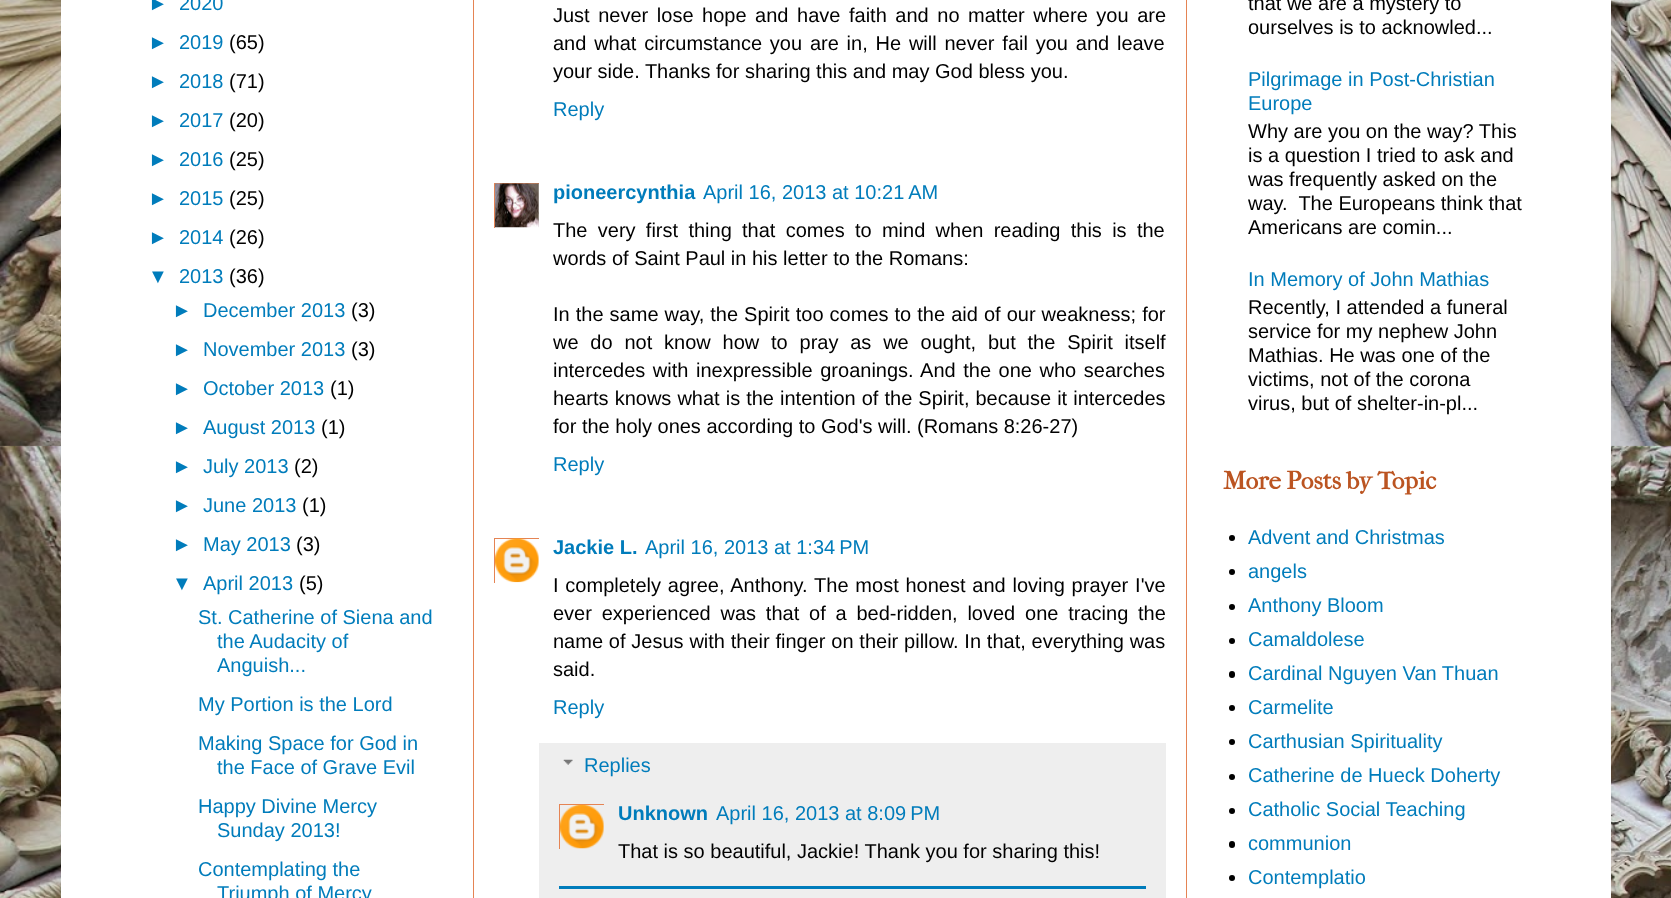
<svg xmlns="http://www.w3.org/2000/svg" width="1671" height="898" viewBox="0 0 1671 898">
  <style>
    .t1 { font: 20px Liberation Sans; fill: #007cbb; }
    .t2 { font: 20px Liberation Sans; fill: #000; }
    .t3 { font: bold 20px Liberation Sans; fill: #007cbb; }
    .t4 { font: bold 25px IM FELL French Canon; fill: #bb5421; }
  </style>
  <defs>
    <clipPath id="clip1"><rect x="494" y="183" width="45" height="45"/></clipPath>
    <clipPath id="clip2"><rect x="494" y="538" width="45" height="45"/></clipPath>
    <clipPath id="clip3"><rect x="559" y="804" width="45" height="45"/></clipPath>
  </defs>
  <rect width="100%" height="100%" fill="#fff"/>
  <image x="0" y="0" width="1671" height="898" href="images/1.png"/>
  <rect x="61" y="0" width="1550" height="898" fill="#fff"/>
  <text x="148" y="10" class="t1">►</text>
  <text x="179" y="10" class="t1">2020</text>
  <text x="148" y="49" class="t1">►</text>
  <text x="179" y="49" class="t1">2019</text>
  <text x="229" y="49" class="t2">(65)</text>
  <text x="148" y="88" class="t1">►</text>
  <text x="179" y="88" class="t1">2018</text>
  <text x="229" y="88" class="t2">(71)</text>
  <text x="148" y="127" class="t1">►</text>
  <text x="179" y="127" class="t1">2017</text>
  <text x="229" y="127" class="t2">(20)</text>
  <text x="148" y="166" class="t1">►</text>
  <text x="179" y="166" class="t1">2016</text>
  <text x="229" y="166" class="t2">(25)</text>
  <text x="148" y="205" class="t1">►</text>
  <text x="179" y="205" class="t1">2015</text>
  <text x="229" y="205" class="t2">(25)</text>
  <text x="148" y="244" class="t1">►</text>
  <text x="179" y="244" class="t1">2014</text>
  <text x="229" y="244" class="t2">(26)</text>
  <text x="148" y="283" class="t1">▼</text>
  <text x="179" y="283" class="t1">2013</text>
  <text x="229" y="283" class="t2">(36)</text>
  <text x="172" y="317" class="t1">►</text>
  <text x="203" y="317" class="t1">December 2013</text>
  <text x="351" y="317" class="t2">(3)</text>
  <text x="172" y="356" class="t1">►</text>
  <text x="203" y="356" class="t1">November 2013</text>
  <text x="351" y="356" class="t2">(3)</text>
  <text x="172" y="395" class="t1">►</text>
  <text x="203" y="395" class="t1">October 2013</text>
  <text x="330" y="395" class="t2">(1)</text>
  <text x="172" y="434" class="t1">►</text>
  <text x="203" y="434" class="t1">August 2013</text>
  <text x="321" y="434" class="t2">(1)</text>
  <text x="172" y="473" class="t1">►</text>
  <text x="203" y="473" class="t1">July 2013</text>
  <text x="294" y="473" class="t2">(2)</text>
  <text x="172" y="512" class="t1">►</text>
  <text x="203" y="512" class="t1">June 2013</text>
  <text x="302" y="512" class="t2">(1)</text>
  <text x="172" y="551" class="t1">►</text>
  <text x="203" y="551" class="t1">May 2013</text>
  <text x="296" y="551" class="t2">(3)</text>
  <text x="172" y="590" class="t1">▼</text>
  <text x="203" y="590" class="t1">April 2013</text>
  <text x="299" y="590" class="t2">(5)</text>
  <text x="198" y="624" class="t1">St. Catherine of Siena and</text>
  <text x="217" y="648" class="t1">the Audacity of</text>
  <text x="217" y="672" class="t1">Anguish...</text>
  <text x="198" y="711" class="t1">My Portion is the Lord</text>
  <text x="198" y="750" class="t1">Making Space for God in</text>
  <text x="217" y="774" class="t1">the Face of Grave Evil</text>
  <text x="198" y="813" class="t1">Happy Divine Mercy</text>
  <text x="217" y="837" class="t1">Sunday 2013!</text>
  <text x="198" y="876" class="t1">Contemplating the</text>
  <text x="217" y="900" class="t1">Triumph of Mercy</text>
  <text x="553" y="22" word-spacing="3" class="t2">Just never lose hope and have faith and no matter where you are</text>
  <text x="553" y="50" word-spacing="2.25" class="t2">and what circumstance you are in, He will never fail you and leave</text>
  <text x="553" y="78" class="t2">your side. Thanks for sharing this and may God bless you.</text>
  <text x="553" y="116" class="t1">Reply</text>
  <g clip-path="url(#clip1)">
    <rect x="494.5" y="183.5" width="46" height="46" fill="none" stroke="#e58454"/>
  </g>
  <image x="495" y="183" width="44" height="45" href="images/2.png"/>
  <text x="553" y="199" class="t3">pioneercynthia</text>
  <text x="703" y="199" class="t1">April 16, 2013 at 10:21 AM</text>
  <text x="553" y="237" word-spacing="4.75" class="t2">The very first thing that comes to mind when reading this is the</text>
  <text x="553" y="265" class="t2">words of Saint Paul in his letter to the Romans:</text>
  <text x="553" y="321" word-spacing="0.5" class="t2">In the same way, the Spirit too comes to the aid of our weakness; for</text>
  <text x="553" y="349" word-spacing="6.25" class="t2">we do not know how to pray as we ought, but the Spirit itself</text>
  <text x="553" y="377" word-spacing="2" class="t2">intercedes with inexpressible groanings. And the one who searches</text>
  <text x="553" y="405" word-spacing="0.5" class="t2">hearts knows what is the intention of the Spirit, because it intercedes</text>
  <text x="553" y="433" class="t2">for the holy ones according to God's will. (Romans 8:26-27)</text>
  <text x="553" y="471" class="t1">Reply</text>
  <g clip-path="url(#clip2)">
    <rect x="494.5" y="538.5" width="45" height="45" fill="none" stroke="#e58454"/>
  </g>
  <image x="495" y="538" width="44" height="45" href="images/3.png"/>
  <text x="553" y="554" class="t3">Jackie L.</text>
  <text x="645" y="554" class="t1">April 16, 2013 at 1:34 PM</text>
  <text x="553" y="592" word-spacing="1.25" class="t2">I completely agree, Anthony. The most honest and loving prayer I've</text>
  <text x="553" y="620" word-spacing="4.25" class="t2">ever experienced was that of a bed-ridden, loved one tracing the</text>
  <text x="553" y="648" word-spacing="0.25" class="t2">name of Jesus with their finger on their pillow. In that, everything was</text>
  <text x="553" y="676" class="t2">said.</text>
  <text x="553" y="714" class="t1">Reply</text>
  <rect x="539" y="743" width="627" height="155" fill="#eee"/>
  <image x="563" y="759" width="10" height="6" href="images/4.png"/>
  <text x="584" y="772" class="t1">Replies</text>
  <g clip-path="url(#clip3)">
    <rect x="559.5" y="804.5" width="45" height="45" fill="none" stroke="#e58454"/>
  </g>
  <image x="560" y="804" width="44" height="45" href="images/5.png"/>
  <text x="618" y="820" class="t3">Unknown</text>
  <text x="716" y="820" class="t1">April 16, 2013 at 8:09 PM</text>
  <text x="618" y="858" class="t2">That is so beautiful, Jackie! Thank you for sharing this!</text>
  <rect x="559" y="886" width="587" height="3" fill="#007cbb"/>
  <text x="1248" y="10" class="t2">that we are a mystery to</text>
  <text x="1248" y="34" class="t2">ourselves is to acknowled...</text>
  <text x="1248" y="86" class="t1">Pilgrimage in Post-Christian</text>
  <text x="1248" y="110" class="t1">Europe</text>
  <text x="1248" y="138" class="t2">Why are you on the way? This</text>
  <text x="1248" y="162" class="t2">is a question I tried to ask and</text>
  <text x="1248" y="186" class="t2">was frequently asked on the</text>
  <text x="1248" y="210" class="t2" xml:space="preserve">way.  The Europeans think that</text>
  <text x="1248" y="234" class="t2">Americans are comin...</text>
  <text x="1248" y="286" class="t1">In Memory of John Mathias</text>
  <text x="1248" y="314" class="t2">Recently, I attended a funeral</text>
  <text x="1248" y="338" class="t2">service for my nephew John</text>
  <text x="1248" y="362" class="t2">Mathias. He was one of the</text>
  <text x="1248" y="386" class="t2">victims, not of the corona</text>
  <text x="1248" y="410" class="t2">virus, but of shelter-in-pl...</text>
  <text x="1223" y="489" class="t4">More Posts by Topic</text>
  <circle cx="1232" cy="538" r="3" fill="#000"/>
  <text x="1248" y="544" class="t1">Advent and Christmas</text>
  <circle cx="1232" cy="572" r="3" fill="#000"/>
  <text x="1248" y="578" class="t1">angels</text>
  <circle cx="1232" cy="607" r="3" fill="#000"/>
  <text x="1248" y="612" class="t1">Anthony Bloom</text>
  <circle cx="1232" cy="641" r="3" fill="#000"/>
  <text x="1248" y="646" class="t1">Camaldolese</text>
  <rect x="1229" y="671" width="6" height="7" rx="3" fill="#000"/>
  <text x="1248" y="680" class="t1">Cardinal Nguyen Van Thuan</text>
  <circle cx="1232" cy="708" r="3" fill="#000"/>
  <text x="1248" y="714" class="t1">Carmelite</text>
  <circle cx="1232" cy="742" r="3" fill="#000"/>
  <text x="1248" y="748" class="t1">Carthusian Spirituality</text>
  <circle cx="1232" cy="777" r="3" fill="#000"/>
  <text x="1248" y="782" class="t1">Catherine de Hueck Doherty</text>
  <circle cx="1232" cy="811" r="3" fill="#000"/>
  <text x="1248" y="816" class="t1">Catholic Social Teaching</text>
  <rect x="1229" y="841" width="6" height="7" rx="3" fill="#000"/>
  <text x="1248" y="850" class="t1">communion</text>
  <circle cx="1232" cy="878" r="3" fill="#000"/>
  <text x="1248" y="884" class="t1">Contemplatio</text>
  <rect x="473" y="0" width="1" height="898" fill="#e58454"/>
  <rect x="1186" y="0" width="1" height="898" fill="#e58454"/>
</svg>
